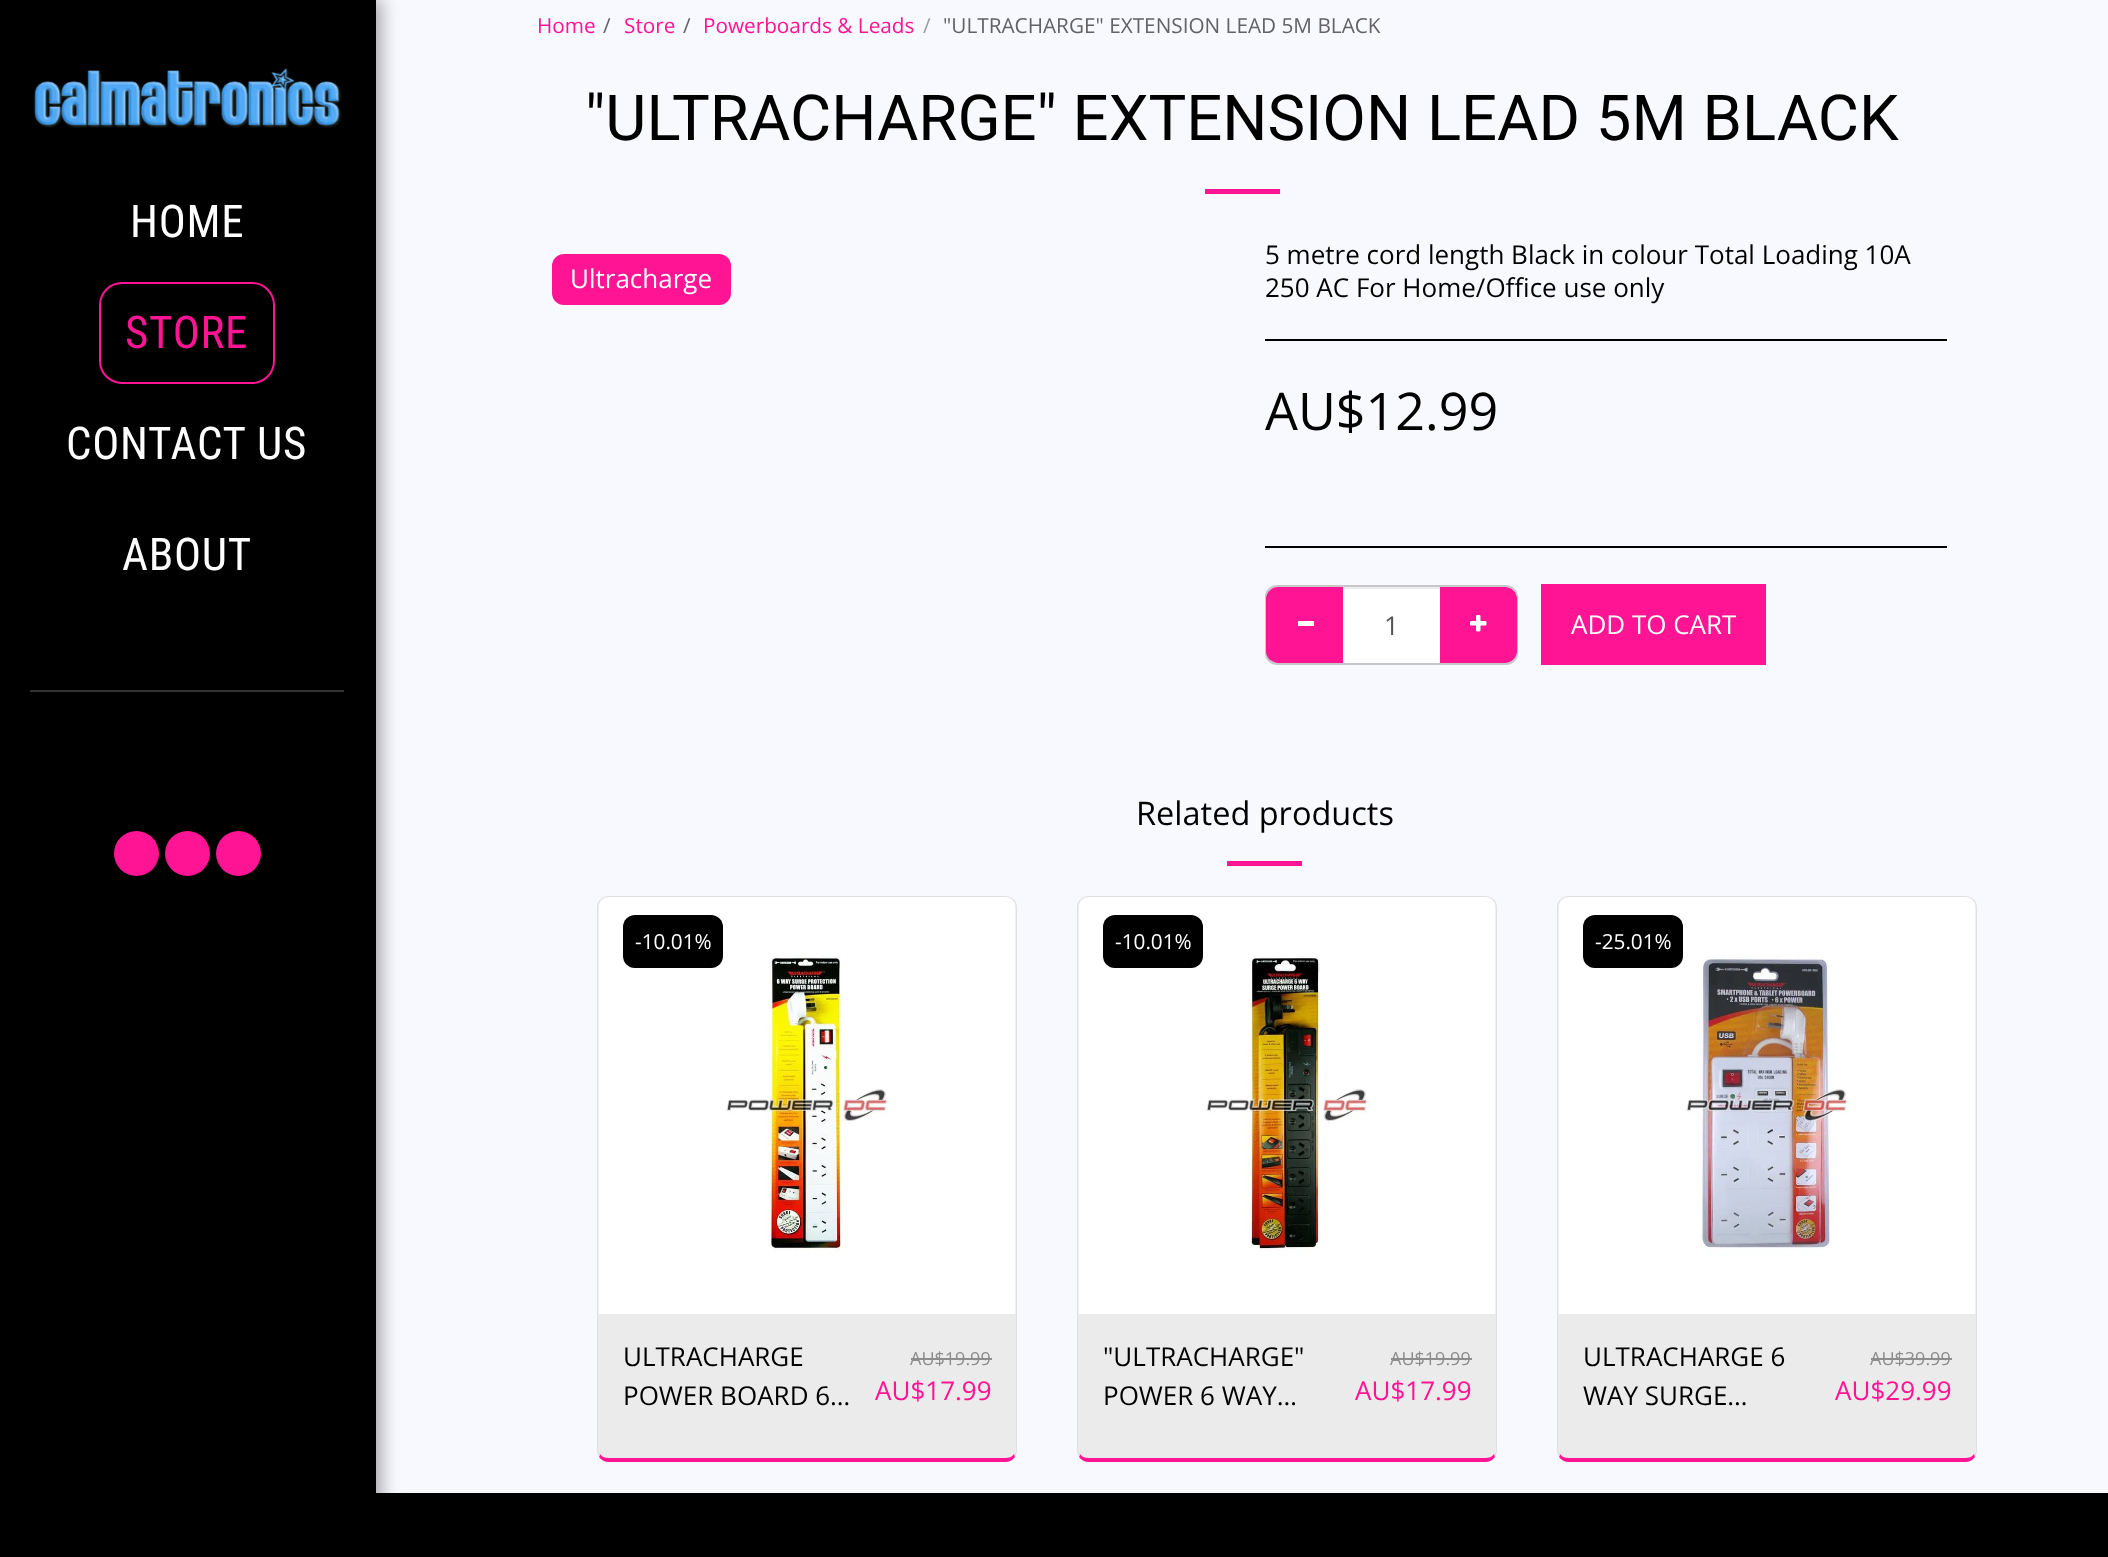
<svg xmlns="http://www.w3.org/2000/svg" width="2108" height="1557" viewBox="0 0 2108 1557">
  <style>
    .t1 { font: 45px Roboto Condensed; letter-spacing: 0.75px; fill: #fff; }
    .t2 { font: 45px Roboto Condensed; letter-spacing: 0.75px; fill: #ff1493; }
    .t3 { font: 20.75px Open Sans; fill: #ff1493; }
    .t4 { font: 20.75px Open Sans; fill: #636366; }
    .t5 { font: 20.75px Open Sans; fill: #9f9fa3; }
    .t6 { font: 63.4px Roboto; fill: #000; }
    .t7 { font: 26px Open Sans; fill: #fff; }
    .t8 { font: 26px Open Sans; fill: #000; }
    .t9 { font: 52px Open Sans; fill: #000; }
    .t10 { font: 26px Open Sans; fill: #555; }
    .t11 { font: 32.5px Open Sans; fill: #000; }
    .t12 { font: 20.75px Open Sans; fill: #fff; }
    .t13 { font: 18px Open Sans; fill: #8d8d8d; }
    .t14 { font: 26px Open Sans; fill: #ff1493; }
  </style>
  <rect width="100%" height="100%" fill="#000"/>
  <rect x="376" y="0" width="1732" height="1493" fill="#f8f8ff"/>
  <rect x="0" y="-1" width="381" height="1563" fill="#00000059" filter="blur(9px)"/>
  <image x="34" y="68" width="308" height="60" href="images/1.png"/>
  <text x="130" y="237" class="t1">HOME</text>
  <rect x="100" y="283" width="174" height="100" rx="22" fill="none" stroke="#ff1493" stroke-width="2"/>
  <text x="125" y="348" class="t2">STORE</text>
  <text x="66" y="459" class="t1">CONTACT US</text>
  <text x="122" y="570" class="t1">ABOUT</text>
  <rect x="30" y="690" width="314" height="2" fill="#333"/>
  <circle cx="136.5" cy="853.5" r="22.5" fill="#ff1493"/>
  <circle cx="187.5" cy="853.5" r="22.5" fill="#ff1493"/>
  <circle cx="238.5" cy="853.5" r="22.5" fill="#ff1493"/>
  <text x="537" y="33" class="t3">Home</text>
  <text x="603" y="33" class="t4">/</text>
  <text x="624" y="33" class="t3">Store</text>
  <text x="683" y="33" class="t4">/</text>
  <text x="703" y="33" class="t3">Powerboards &amp; Leads</text>
  <text x="923" y="33" class="t5">/</text>
  <text x="943" y="33" class="t4">"ULTRACHARGE" EXTENSION LEAD 5M BLACK</text>
  <text x="585" y="140" class="t6">"ULTRACHARGE" EXTENSION LEAD 5M BLACK</text>
  <rect x="1205" y="189" width="75" height="5" fill="#ff1493"/>
  <rect x="552" y="254" width="179" height="51" rx="12" fill="#ff1493"/>
  <text x="570" y="288" class="t7">Ultracharge</text>
  <text x="1265" y="264" class="t8">5 metre cord length Black in colour Total Loading 10A</text>
  <text x="1265" y="297" class="t8">250 AC For Home/Office use only</text>
  <rect x="1265" y="339" width="682" height="2" fill="#000"/>
  <text x="1265" y="430" class="t9">AU$12.99</text>
  <rect x="1265" y="546" width="682" height="2" fill="#000"/>
  <rect x="1266" y="586" width="251" height="78" rx="11" fill="none" stroke="#c6c6cc" stroke-width="2"/>
  <path d="M1278 587H1344V663H1278C1271.5 663 1266 657.5 1266 651V599C1266 592.5 1271.5 587 1278 587Z" fill="#ff1493"/>
  <rect x="1298" y="621" width="16" height="5" fill="#fff"/>
  <path d="M1439 587H1505C1511.5 587 1517 592.5 1517 599V651C1517 657.5 1511.5 663 1505 663H1439Z" fill="#ff1493"/>
  <rect x="1343" y="589" width="97" height="74" fill="#fff"/>
  <rect x="1343" y="587" width="97" height="2" fill="#ececec"/>
  <text x="1384" y="635" class="t10">1</text>
  <image x="1470" y="615" width="17" height="17" href="images/2.png"/>
  <rect x="1541" y="584" width="225" height="81" fill="#ff1493"/>
  <text x="1571" y="634" class="t7">ADD TO CART</text>
  <text x="1136" y="825" class="t11">Related products</text>
  <rect x="1227" y="861" width="75" height="5" fill="#ff1493"/>
  <path d="M609 897H1005C1011 897 1016 902 1016 908V1450C1016 1455 1011 1458 1005 1458H609C603 1458 598 1455 598 1450V908C598 902 603 897 609 897Z" fill="#ebebeb"/>
  <path d="M609 896C606 896 603 897 601 899L602 900C603 898 606 897 609 897H1005C1008 897 1011 898 1012 900L1013 899C1011 897 1008 896 1005 896Z" fill="#e0e0e0"/>
  <path d="M1013 899C1016 901 1017 904 1017 908V1450C1017 1453 1016 1455 1015 1457L1014 1454C1015 1453 1016 1452 1016 1450V908C1016 905 1015 902 1012 900Z" fill="#e0e0e0"/>
  <path d="M1015 1457C1013 1460 1009 1462 1005 1462H609C605 1462 601 1460 599 1457L600 1454C602 1457 605 1458 609 1458H1005C1009 1458 1012 1457 1014 1454Z" fill="#ff1493"/>
  <path d="M597 908V1450C597 1453 598 1455 599 1457L600 1454C599 1453 598 1452 598 1450V908C598 905 599 902 602 900L601 899C598 901 597 904 597 908Z" fill="#e0e0e0"/>
  <image x="598" y="897" width="418" height="417" href="images/3.png"/>
  <rect x="623" y="915" width="100" height="53" rx="12" fill="#000"/>
  <text x="635" y="949" class="t12">-10.01%</text>
  <text x="623" y="1366" class="t8">ULTRACHARGE</text>
  <text x="623" y="1405" class="t8">POWER BOARD 6…</text>
  <text x="910" y="1365" class="t13">AU$19.99</text>
  <rect x="911" y="1358" width="81" height="2" fill="#8d8d8d"/>
  <text x="875" y="1400" class="t14">AU$17.99</text>
  <path d="M1089 897H1485C1491 897 1496 902 1496 908V1450C1496 1455 1491 1458 1485 1458H1089C1083 1458 1078 1455 1078 1450V908C1078 902 1083 897 1089 897Z" fill="#ebebeb"/>
  <path d="M1089 896C1086 896 1083 897 1081 899L1082 900C1083 898 1086 897 1089 897H1485C1488 897 1491 898 1492 900L1493 899C1491 897 1488 896 1485 896Z" fill="#e0e0e0"/>
  <path d="M1493 899C1496 901 1497 904 1497 908V1450C1497 1453 1496 1455 1495 1457L1494 1454C1495 1453 1496 1452 1496 1450V908C1496 905 1495 902 1492 900Z" fill="#e0e0e0"/>
  <path d="M1495 1457C1493 1460 1489 1462 1485 1462H1089C1085 1462 1081 1460 1079 1457L1080 1454C1082 1457 1085 1458 1089 1458H1485C1489 1458 1492 1457 1494 1454Z" fill="#ff1493"/>
  <path d="M1077 908V1450C1077 1453 1078 1455 1079 1457L1080 1454C1079 1453 1078 1452 1078 1450V908C1078 905 1079 902 1082 900L1081 899C1078 901 1077 904 1077 908Z" fill="#e0e0e0"/>
  <image x="1078" y="897" width="418" height="417" href="images/4.png"/>
  <rect x="1103" y="915" width="100" height="53" rx="12" fill="#000"/>
  <text x="1115" y="949" class="t12">-10.01%</text>
  <text x="1103" y="1366" class="t8">"ULTRACHARGE"</text>
  <text x="1103" y="1405" class="t8">POWER 6 WAY…</text>
  <text x="1390" y="1365" class="t13">AU$19.99</text>
  <rect x="1391" y="1358" width="81" height="2" fill="#8d8d8d"/>
  <text x="1355" y="1400" class="t14">AU$17.99</text>
  <path d="M1569 897H1965C1971 897 1976 902 1976 908V1450C1976 1455 1971 1458 1965 1458H1569C1563 1458 1558 1455 1558 1450V908C1558 902 1563 897 1569 897Z" fill="#ebebeb"/>
  <path d="M1569 896C1566 896 1563 897 1561 899L1562 900C1563 898 1566 897 1569 897H1965C1968 897 1971 898 1972 900L1973 899C1971 897 1968 896 1965 896Z" fill="#e0e0e0"/>
  <path d="M1973 899C1976 901 1977 904 1977 908V1450C1977 1453 1976 1455 1975 1457L1974 1454C1975 1453 1976 1452 1976 1450V908C1976 905 1975 902 1972 900Z" fill="#e0e0e0"/>
  <path d="M1975 1457C1973 1460 1969 1462 1965 1462H1569C1565 1462 1561 1460 1559 1457L1560 1454C1562 1457 1565 1458 1569 1458H1965C1969 1458 1972 1457 1974 1454Z" fill="#ff1493"/>
  <path d="M1557 908V1450C1557 1453 1558 1455 1559 1457L1560 1454C1559 1453 1558 1452 1558 1450V908C1558 905 1559 902 1562 900L1561 899C1558 901 1557 904 1557 908Z" fill="#e0e0e0"/>
  <image x="1558" y="897" width="418" height="417" href="images/5.png"/>
  <rect x="1583" y="915" width="100" height="53" rx="12" fill="#000"/>
  <text x="1595" y="949" class="t12">-25.01%</text>
  <text x="1583" y="1366" class="t8">ULTRACHARGE 6</text>
  <text x="1583" y="1405" class="t8">WAY SURGE…</text>
  <text x="1870" y="1365" class="t13">AU$39.99</text>
  <rect x="1871" y="1358" width="81" height="2" fill="#8d8d8d"/>
  <text x="1835" y="1400" class="t14">AU$29.99</text>
</svg>
